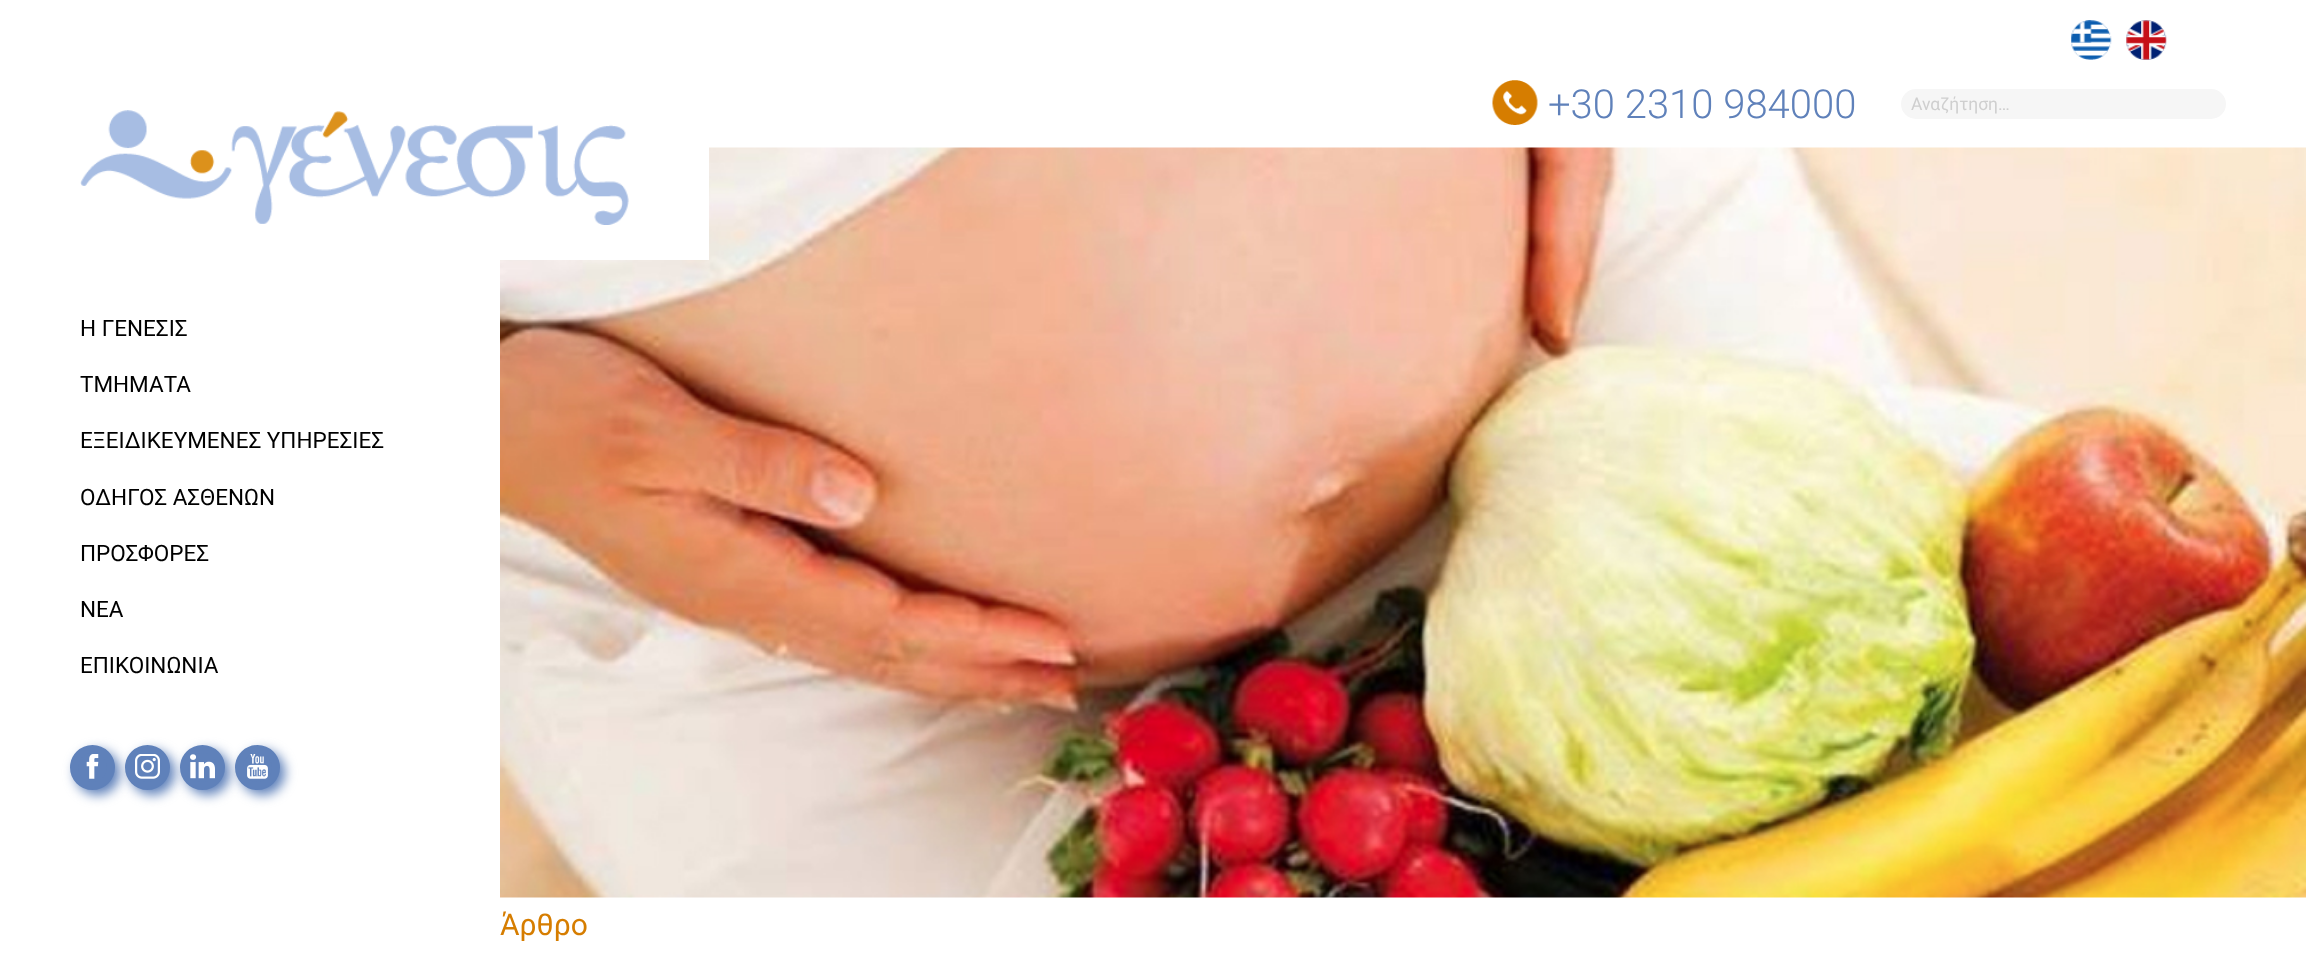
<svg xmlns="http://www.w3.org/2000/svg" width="2306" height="968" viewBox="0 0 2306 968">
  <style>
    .t1 { font: 300 40px Roboto; fill: #5f81ba; }
    .t2 { font: 17.5px Roboto; fill: #cfcfcf; }
    .t3 { font: 22.5px Roboto; fill: #000; }
    .t4 { font: 30px Roboto; fill: #d67d00; }
  </style>
  <rect width="100%" height="100%" fill="#fff"/>
  <image x="2071" y="20" width="41" height="40" href="images/1.png"/>
  <image x="2126" y="20" width="41" height="40" href="images/2.png"/>
  <image x="1492" y="80" width="46" height="45" href="images/3.png"/>
  <text x="1548" y="118" class="t1">+30 2310 984000</text>
  <rect x="1901" y="89" width="325" height="30" rx="15" fill="#f6f6f6"/>
  <text x="1911" y="110" class="t2">Αναζήτηση…</text>
  <image x="500" y="147" width="1806" height="751" href="images/9.png"/>
  <rect x="500" y="147" width="209" height="113" fill="#fff"/>
  <image x="80" y="110" width="549" height="115" href="images/4.png"/>
  <text x="80" y="336" class="t3">Η ΓΕΝΕΣΙΣ</text>
  <text x="80" y="392" class="t3">ΤΜΗΜΑΤΑ</text>
  <text x="80" y="448" class="t3">ΕΞΕΙΔΙΚΕΥΜΕΝΕΣ ΥΠΗΡΕΣΙΕΣ</text>
  <text x="80" y="505" class="t3">ΟΔΗΓΟΣ ΑΣΘΕΝΩΝ</text>
  <text x="80" y="561" class="t3">ΠΡΟΣΦΟΡΕΣ</text>
  <text x="80" y="617" class="t3">ΝΕΑ</text>
  <text x="80" y="673" class="t3">ΕΠΙΚΟΙΝΩΝΙΑ</text>
  <rect x="75" y="750" width="45" height="45" rx="22.5" fill="#5f81ba" filter="blur(6px)"/>
  <circle cx="92.5" cy="767.5" r="18.5" fill="#5f81ba" stroke="#5f81ba" stroke-width="8"/>
  <image x="86" y="754" width="13" height="25" href="images/5.png"/>
  <rect x="130" y="750" width="45" height="45" rx="22.5" fill="#5f81ba" filter="blur(6px)"/>
  <circle cx="147.5" cy="767.5" r="18.5" fill="#5f81ba" stroke="#5f81ba" stroke-width="8"/>
  <image x="135" y="754" width="25" height="25" href="images/6.png"/>
  <rect x="185" y="750" width="45" height="45" rx="22.5" fill="#5f81ba" filter="blur(6px)"/>
  <circle cx="202.5" cy="767.5" r="18.5" fill="#5f81ba" stroke="#5f81ba" stroke-width="8"/>
  <image x="190" y="754" width="25" height="25" href="images/7.png"/>
  <rect x="240" y="750" width="45" height="45" rx="22.5" fill="#5f81ba" filter="blur(6px)"/>
  <circle cx="257.5" cy="767.5" r="18.5" fill="#5f81ba" stroke="#5f81ba" stroke-width="8"/>
  <image x="247" y="754" width="21" height="25" href="images/8.png"/>
  <text x="500" y="935" class="t4">Άρθρο</text>
</svg>
